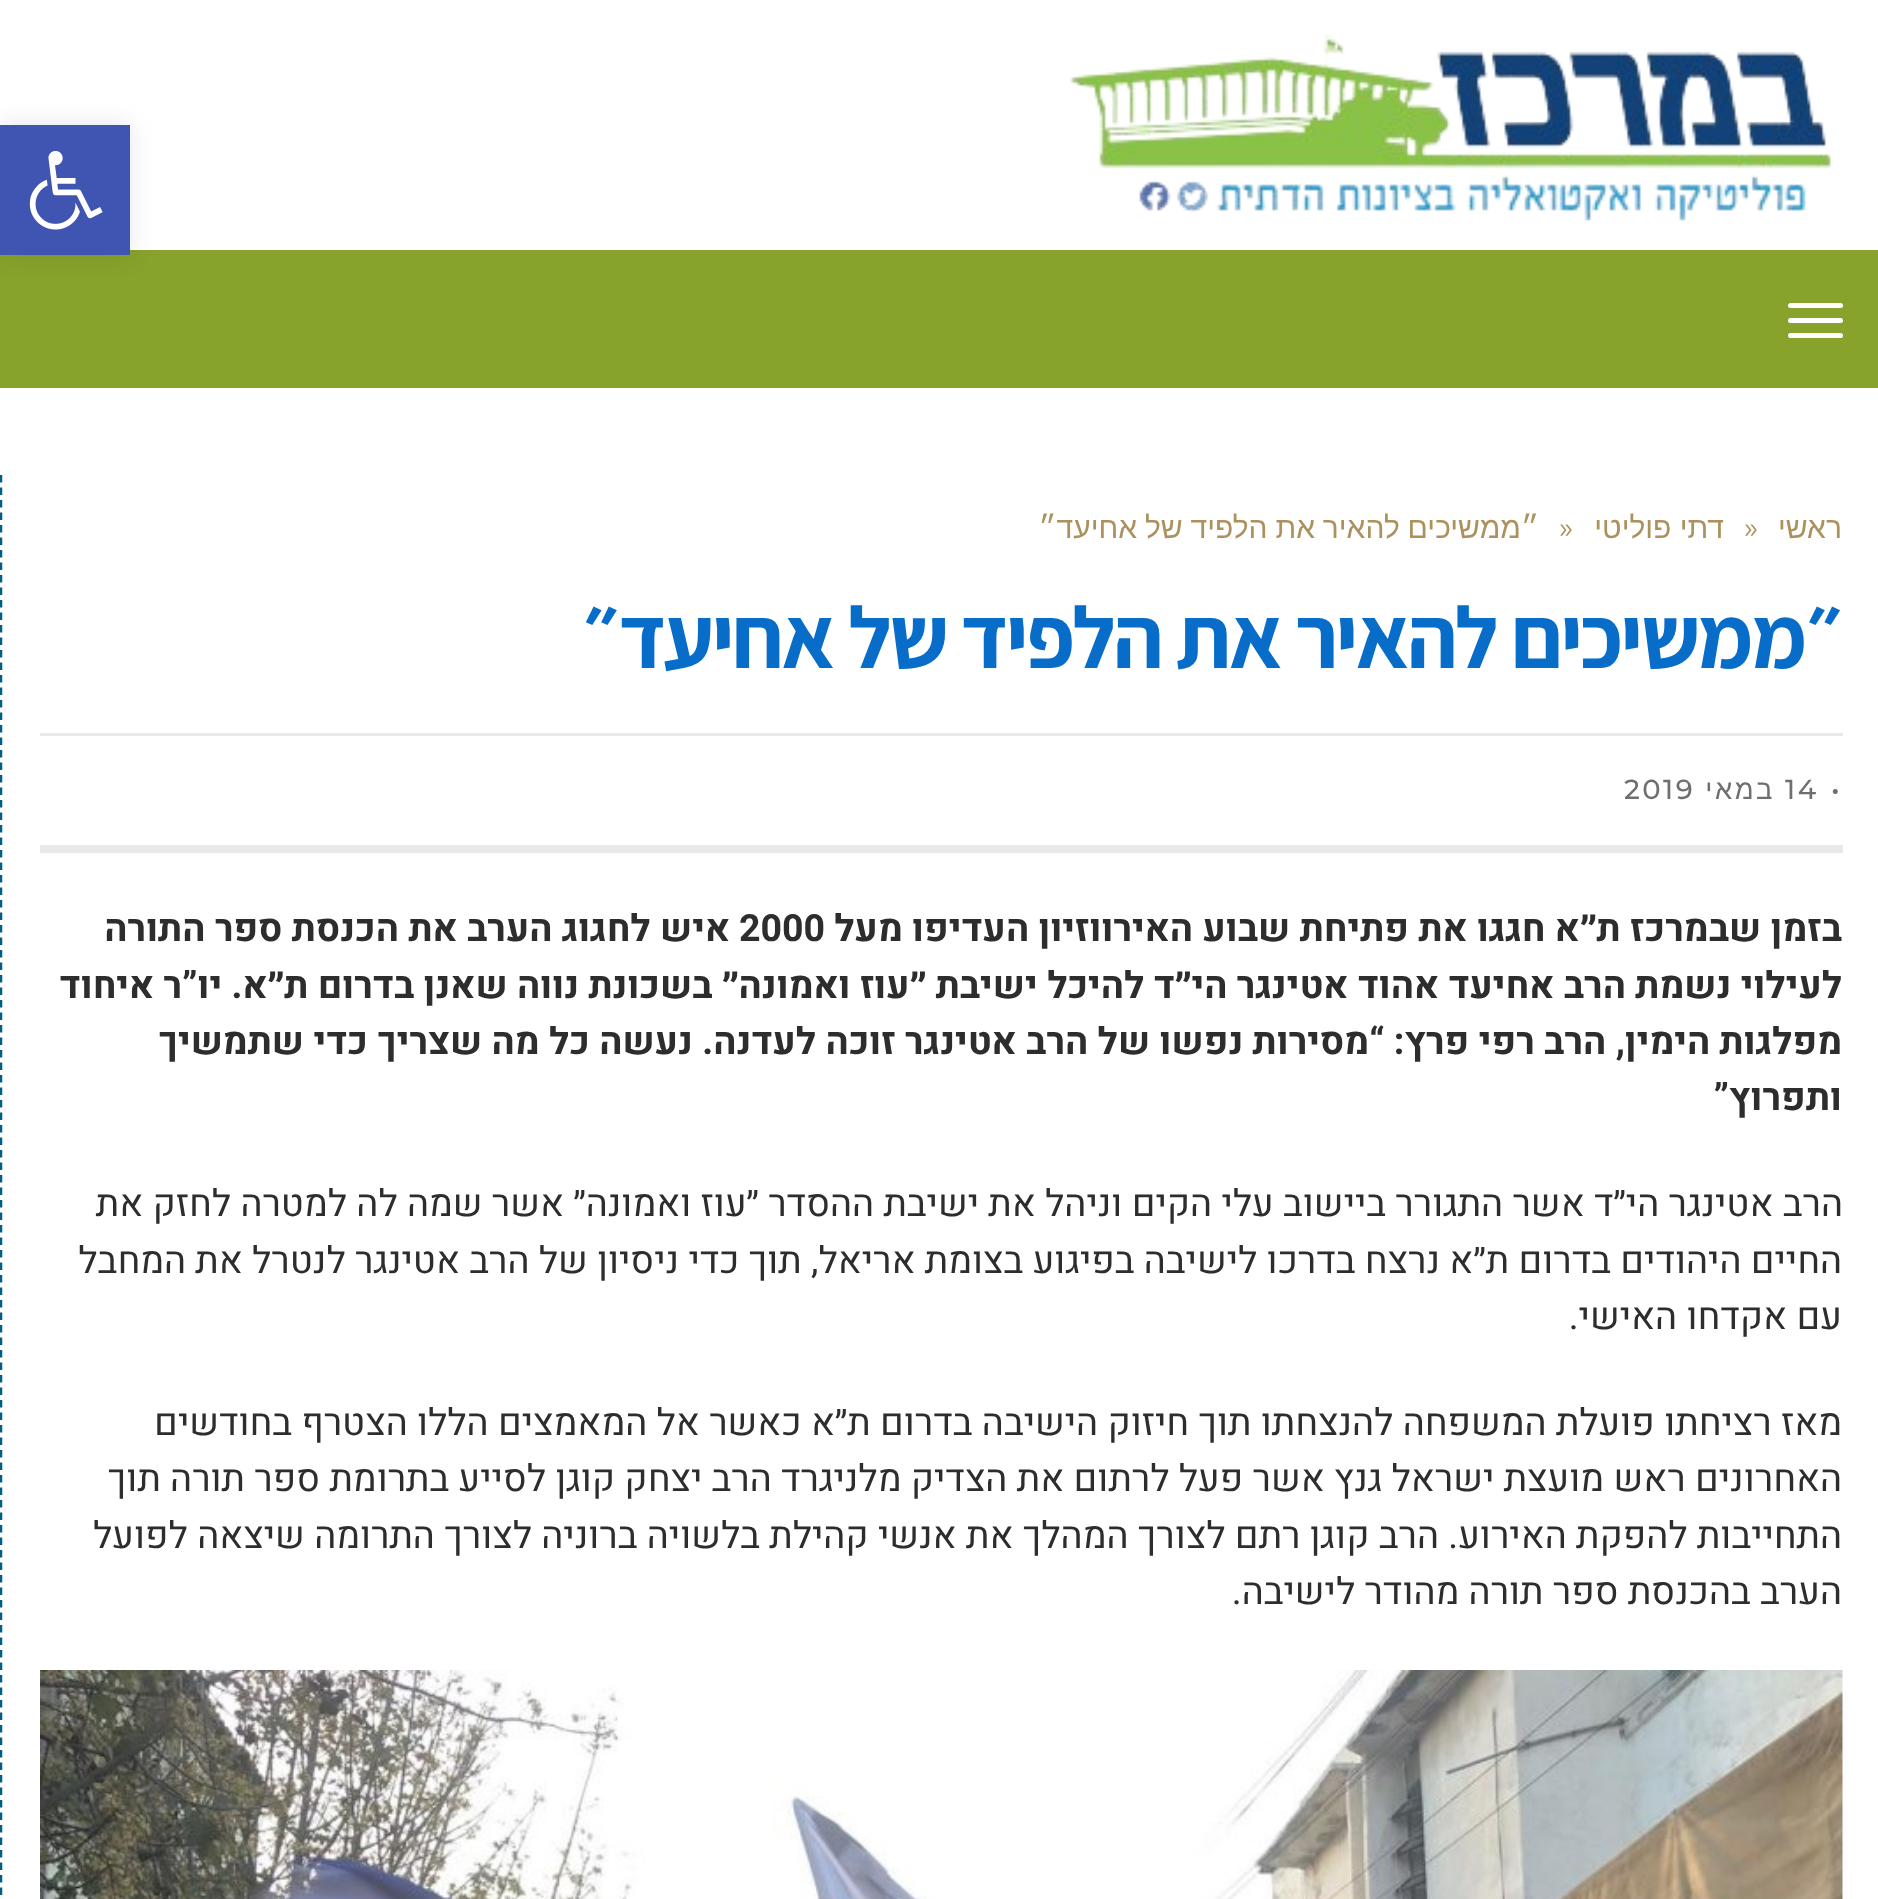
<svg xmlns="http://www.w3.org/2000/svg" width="1878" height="1899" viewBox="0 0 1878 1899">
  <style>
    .t1 { font: 30px Liberation Sans; direction: rtl; fill: #ac915d; }
    .t2 { font: 30px Montserrat; fill: #ac915d; }
    .t3 { font: bold 87.5px Assistant; letter-spacing: -2.5px; direction: rtl; fill: #086dc9; }
    .t4 { font: 500 27.5px Montserrat; letter-spacing: 2.5px; fill: #6f6f6f; }
    .t5 { font: 27.5px Liberation Sans; letter-spacing: 2.5px; direction: rtl; fill: #6f6f6f; }
    .t6 { font: bold 37.5px Heebo; direction: rtl; fill: #2d2d2d; }
    .t7 { font: bold 37.5px Heebo; fill: #2d2d2d; }
    .t8 { font: 37.5px Heebo; direction: rtl; fill: #2d2d2d; }
  </style>
  <rect width="100%" height="100%" fill="#fff"/>
  <rect x="0" y="250" width="1878" height="138" fill="#87a32c"/>
  <rect x="0" y="125" width="130" height="130" fill="#0000001a" filter="blur(12.5px)"/>
  <rect x="0" y="125" width="130" height="130" fill="#4054b2"/>
  <image x="29" y="151" width="74" height="79" href="images/1.png"/>
  <image x="1069" y="34" width="764" height="187" href="images/2.png"/>
  <rect x="1788" y="303" width="55" height="5" rx="2.5" fill="#fff"/>
  <rect x="1788" y="318" width="55" height="5" rx="2.5" fill="#fff"/>
  <rect x="1788" y="333" width="55" height="5" rx="2.5" fill="#fff"/>
  <path d="M1 475V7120" fill="none" stroke="#025e83" stroke-width="2.5" stroke-dasharray="7.5 5"/>
  <text x="1842" y="538" class="t1">ראשי</text>
  <text x="1744" y="538" class="t2">»</text>
  <text x="1724" y="538" class="t1">דתי פוליטי</text>
  <text x="1559" y="538" class="t2">»</text>
  <text x="1539" y="538" word-spacing="-0.5" class="t1">״ממשיכים להאיר את הלפיד של אחיעד״</text>
  <text x="1842" y="668" class="t3">״ממשיכים להאיר את הלפיד של אחיעד״</text>
  <rect x="40" y="733" width="1803" height="3" fill="#e9e9e9"/>
  <rect x="40" y="845" width="1803" height="8" fill="#e9e9e9"/>
  <text x="1831" y="799" class="t4">•</text>
  <text x="1785" y="799" class="t4">14</text>
  <text x="1775" y="799" class="t5">במאי</text>
  <text x="1624" y="799" class="t4">2019</text>
  <text x="1842" y="941" class="t6">בזמן שבמרכז ת״א חגגו את פתיחת שבוע האירווזיון העדיפו מעל</text>
  <text x="739" y="941" class="t7">2000</text>
  <text x="730" y="941" class="t6">איש לחגוג הערב את הכנסת ספר התורה</text>
  <text x="1842" y="998" class="t6">לעילוי נשמת הרב אחיעד אהוד אטינגר הי״ד להיכל ישיבת ״עוז ואמונה״ בשכונת נווה שאנן בדרום ת״א. יו”ר איחוד</text>
  <text x="1842" y="1054" class="t6">מפלגות הימין, הרב רפי פרץ: “מסירות נפשו של הרב אטינגר זוכה לעדנה. נעשה כל מה שצריך כדי שתמשיך</text>
  <text x="1842" y="1110" class="t6">ותפרוץ”</text>
  <text x="1843" y="1216" class="t8">הרב אטינגר הי״ד אשר התגורר ביישוב עלי הקים וניהל את ישיבת ההסדר ״עוז ואמונה״ אשר שמה לה למטרה לחזק את</text>
  <text x="1842" y="1273" class="t8">החיים היהודים בדרום ת״א נרצח בדרכו לישיבה בפיגוע בצומת אריאל, תוך כדי ניסיון של הרב אטינגר לנטרל את המחבל</text>
  <text x="1842" y="1329" class="t8">עם אקדחו האישי.</text>
  <text x="1842" y="1435" class="t8">מאז רציחתו פועלת המשפחה להנצחתו תוך חיזוק הישיבה בדרום ת״א כאשר אל המאמצים הללו הצטרף בחודשים</text>
  <text x="1842" y="1491" class="t8">האחרונים ראש מועצת ישראל גנץ אשר פעל לרתום את הצדיק מלניגרד הרב יצחק קוגן לסייע בתרומת ספר תורה תוך</text>
  <text x="1842" y="1548" class="t8">התחייבות להפקת האירוע. הרב קוגן רתם לצורך המהלך את אנשי קהילת בלשויה ברוניה לצורך התרומה שיצאה לפועל</text>
  <text x="1842" y="1604" class="t8">הערב בהכנסת ספר תורה מהודר לישיבה.</text>
  <image x="40" y="1670" width="1803" height="229" href="images/3.png"/>
</svg>
